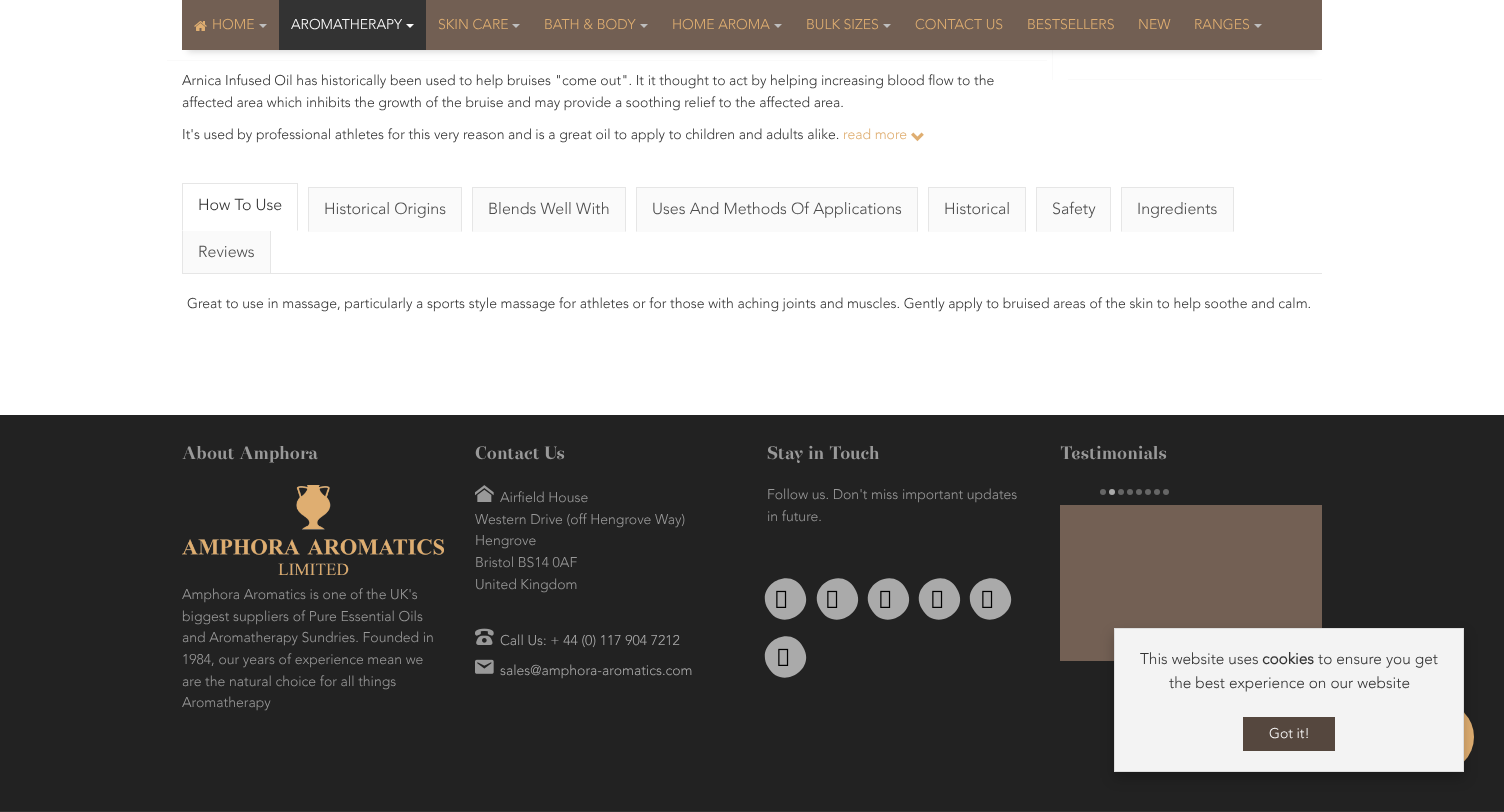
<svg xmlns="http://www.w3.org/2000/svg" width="1504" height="812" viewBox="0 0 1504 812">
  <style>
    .t1 { font: 300 14px Avenir; fill: #dfae71; }
    .t2 { font: 300 14px Avenir; fill: #fff; }
    .t3 { font: 300 14px Avenir; fill: #333; }
    .t4 { font: 300 16px Avenir; fill: #333; }
    .t5 { font: 300 16px Avenir; fill: #4d4d4d; }
    .t6 { font: bold 18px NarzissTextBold; fill: #999; }
    .t7 { font: 300 14px Avenir; fill: #999; }
    .t8 { font: 300 14px Avenir; fill: #aaa; }
    .t9 { font: 300 15.4px Avenir; fill: #333; }
    .t10 { font: bold 15.4px Avenir; fill: #333; }
  </style>
  <rect width="100%" height="100%" fill="#fff"/>
  <rect x="1052" y="50" width="1" height="30" fill="#fafafa"/>
  <rect x="167" y="60" width="880" height="1" fill="#fafafa"/>
  <rect x="188" y="14" width="1128" height="38" fill="#00000026" filter="blur(3px)"/>
  <rect x="182" y="0" width="1140" height="50" fill="#725f53"/>
  <image x="194" y="21" width="13" height="10" href="images/1.png"/>
  <text x="212" y="29" class="t1">HOME</text>
  <path d="M259 24H267L263 28Z" fill="#bebebe"/>
  <rect x="279" y="0" width="147" height="50" fill="#333"/>
  <text x="291" y="29" class="t2">AROMATHERAPY</text>
  <path d="M406 24H414L410 28Z" fill="#fff"/>
  <text x="438" y="29" class="t1">SKIN CARE</text>
  <path d="M512 24H520L516 28Z" fill="#bebebe"/>
  <text x="544" y="29" class="t1">BATH &amp; BODY</text>
  <path d="M640 24H648L644 28Z" fill="#bebebe"/>
  <text x="672" y="29" class="t1">HOME AROMA</text>
  <path d="M774 24H782L778 28Z" fill="#bebebe"/>
  <text x="806" y="29" class="t1">BULK SIZES</text>
  <path d="M883 24H891L887 28Z" fill="#bebebe"/>
  <text x="915" y="29" class="t1">CONTACT US</text>
  <text x="1027" y="29" class="t1">BESTSELLERS</text>
  <text x="1138" y="29" class="t1">NEW</text>
  <text x="1194" y="29" class="t1">RANGES</text>
  <path d="M1254 24H1262L1258 28Z" fill="#bebebe"/>
  <rect x="1068" y="79" width="254" height="1" fill="#fafafa"/>
  <text x="182" y="85" class="t3">Arnica Infused Oil has historically been used to help bruises "come out". It it thought to act by helping increasing blood flow to the</text>
  <text x="182" y="107" class="t3">affected area which inhibits the growth of the bruise and may provide a soothing relief to the affected area.</text>
  <text x="182" y="139" class="t3">It's used by professional athletes for this very reason and is a great oil to apply to children and adults alike.</text>
  <text x="843" y="139" class="t1">read more</text>
  <image x="911" y="132" width="13" height="10" href="images/2.png"/>
  <path d="M271 230V275L270 274V231Z" fill="#e6e6e6"/>
  <path d="M182 275V230L183 231V274Z" fill="#e6e6e6"/>
  <rect x="182" y="230" width="89" height="1" fill="#fff"/>
  <rect x="182" y="183" width="116" height="1" fill="#e6e6e6"/>
  <path d="M298 183V231L297 230V184Z" fill="#e6e6e6"/>
  <path d="M182 231V183L183 184V230Z" fill="#e6e6e6"/>
  <text x="198" y="210" class="t4">How To Use</text>
  <rect x="308" y="188" width="154" height="44" fill="#fafafa"/>
  <rect x="308" y="187" width="154" height="1" fill="#e6e6e6"/>
  <path d="M462 187V232L461 231V188Z" fill="#e6e6e6"/>
  <path d="M308 232V187L309 188V231Z" fill="#e6e6e6"/>
  <text x="324" y="214" class="t5">Historical Origins</text>
  <rect x="472" y="188" width="154" height="44" fill="#fafafa"/>
  <rect x="472" y="187" width="154" height="1" fill="#e6e6e6"/>
  <path d="M626 187V232L625 231V188Z" fill="#e6e6e6"/>
  <path d="M472 232V187L473 188V231Z" fill="#e6e6e6"/>
  <text x="488" y="214" class="t5">Blends Well With</text>
  <rect x="636" y="188" width="282" height="44" fill="#fafafa"/>
  <rect x="636" y="187" width="282" height="1" fill="#e6e6e6"/>
  <path d="M918 187V232L917 231V188Z" fill="#e6e6e6"/>
  <path d="M636 232V187L637 188V231Z" fill="#e6e6e6"/>
  <text x="652" y="214" class="t5">Uses And Methods Of Applications</text>
  <rect x="928" y="188" width="98" height="44" fill="#fafafa"/>
  <rect x="928" y="187" width="98" height="1" fill="#e6e6e6"/>
  <path d="M1026 187V232L1025 231V188Z" fill="#e6e6e6"/>
  <path d="M928 232V187L929 188V231Z" fill="#e6e6e6"/>
  <text x="944" y="214" class="t5">Historical</text>
  <rect x="1036" y="188" width="75" height="44" fill="#fafafa"/>
  <rect x="1036" y="187" width="75" height="1" fill="#e6e6e6"/>
  <path d="M1111 187V232L1110 231V188Z" fill="#e6e6e6"/>
  <path d="M1036 232V187L1037 188V231Z" fill="#e6e6e6"/>
  <text x="1052" y="214" class="t5">Safety</text>
  <rect x="1121" y="188" width="113" height="44" fill="#fafafa"/>
  <rect x="1121" y="187" width="113" height="1" fill="#e6e6e6"/>
  <path d="M1234 187V232L1233 231V188Z" fill="#e6e6e6"/>
  <path d="M1121 232V187L1122 188V231Z" fill="#e6e6e6"/>
  <text x="1137" y="214" class="t5">Ingredients</text>
  <rect x="183" y="231" width="87" height="42" fill="#fafafa"/>
  <text x="198" y="257" class="t5">Reviews</text>
  <rect x="182" y="274" width="89" height="1" fill="#fff"/>
  <rect x="182" y="273" width="1140" height="1" fill="#e6e6e6"/>
  <text x="187" y="308" class="t3">Great to use in massage, particularly a sports style massage for athletes or for those with aching joints and muscles. Gently apply to bruised areas of the skin to help soothe and calm.</text>
  <rect x="0" y="415" width="1504" height="396" fill="#222"/>
  <text x="182" y="459" class="t6">About Amphora</text>
  <image x="182" y="485" width="262" height="90" href="images/3.png"/>
  <text x="182" y="599" class="t7">Amphora Aromatics is one of the UK's</text>
  <text x="182" y="621" class="t7">biggest suppliers of Pure Essential Oils</text>
  <text x="182" y="642" class="t7">and Aromatherapy Sundries. Founded in</text>
  <text x="182" y="664" class="t7">1984, our years of experience mean we</text>
  <text x="182" y="686" class="t7">are the natural choice for all things</text>
  <text x="182" y="707" class="t7">Aromatherapy</text>
  <text x="475" y="459" class="t6">Contact Us</text>
  <image x="475" y="485" width="19" height="17" href="images/4.png"/>
  <text x="500" y="502" class="t7">Airfield House</text>
  <text x="475" y="524" class="t7">Western Drive (off Hengrove Way)</text>
  <text x="475" y="545" class="t7">Hengrove</text>
  <text x="475" y="567" class="t7">Bristol BS14 0AF</text>
  <text x="475" y="589" class="t7">United Kingdom</text>
  <image x="475" y="628" width="19" height="17" href="images/5.png"/>
  <text x="500" y="645" class="t8">Call Us: + 44 (0) 117 904 7212</text>
  <image x="475" y="659" width="19" height="15" href="images/6.png"/>
  <text x="500" y="675" class="t8">sales@amphora-aromatics.com</text>
  <text x="767" y="459" class="t6">Stay in Touch</text>
  <text x="767" y="499" class="t7">Follow us. Don't miss important updates</text>
  <text x="767" y="521" class="t7">in future.</text>
  <path d="M803 589C817 612 781 633 768 609C754 586 790 565 803 589Z" fill="#aaa"/>
  <image x="776" y="590" width="11" height="18" href="images/7.png"/>
  <path d="M855 589C869 612 833 633 820 609C806 586 842 565 855 589Z" fill="#aaa"/>
  <image x="827" y="590" width="11" height="18" href="images/7.png"/>
  <path d="M906 589C920 612 884 633 871 609C857 586 893 565 906 589Z" fill="#aaa"/>
  <image x="880" y="590" width="11" height="18" href="images/7.png"/>
  <path d="M957 589C971 612 935 633 922 609C908 586 944 565 957 589Z" fill="#aaa"/>
  <image x="932" y="590" width="11" height="18" href="images/7.png"/>
  <path d="M1008 589C1022 612 986 633 973 609C959 586 995 565 1008 589Z" fill="#aaa"/>
  <image x="982" y="590" width="11" height="18" href="images/7.png"/>
  <path d="M803 647C817 670 781 691 768 667C754 644 790 623 803 647Z" fill="#aaa"/>
  <image x="778" y="648" width="11" height="18" href="images/7.png"/>
  <text x="1060" y="459" class="t6">Testimonials</text>
  <circle cx="1103" cy="492" r="3" fill="#666"/>
  <circle cx="1112" cy="492" r="3" fill="#aaa"/>
  <circle cx="1121" cy="492" r="3" fill="#666"/>
  <circle cx="1130" cy="492" r="3" fill="#666"/>
  <circle cx="1139" cy="492" r="3" fill="#666"/>
  <circle cx="1148" cy="492" r="3" fill="#666"/>
  <circle cx="1157" cy="492" r="3" fill="#666"/>
  <circle cx="1166" cy="492" r="3" fill="#666"/>
  <rect x="1060" y="505" width="262" height="156" fill="#736054"/>
  <circle cx="1439" cy="737" r="35" fill="#dfae71"/>
  <rect x="0" y="811" width="1504" height="1" fill="#333"/>
  <rect x="1114" y="634" width="350" height="144" fill="#0000003b" filter="blur(6.5px)"/>
  <rect x="1114.5" y="628.5" width="349" height="143" fill="#f3f3f3" stroke="#ddd"/>
  <text x="1140" y="664" class="t9">This website uses</text>
  <text x="1262" y="664" class="t10">cookies</text>
  <text x="1318" y="664" class="t9">to ensure you get</text>
  <text x="1169" y="688" class="t9">the best experience on our website</text>
  <rect x="1243" y="717" width="92" height="34" fill="#55473e"/>
  <text x="1269" y="738" class="t2">Got it!</text>
</svg>
